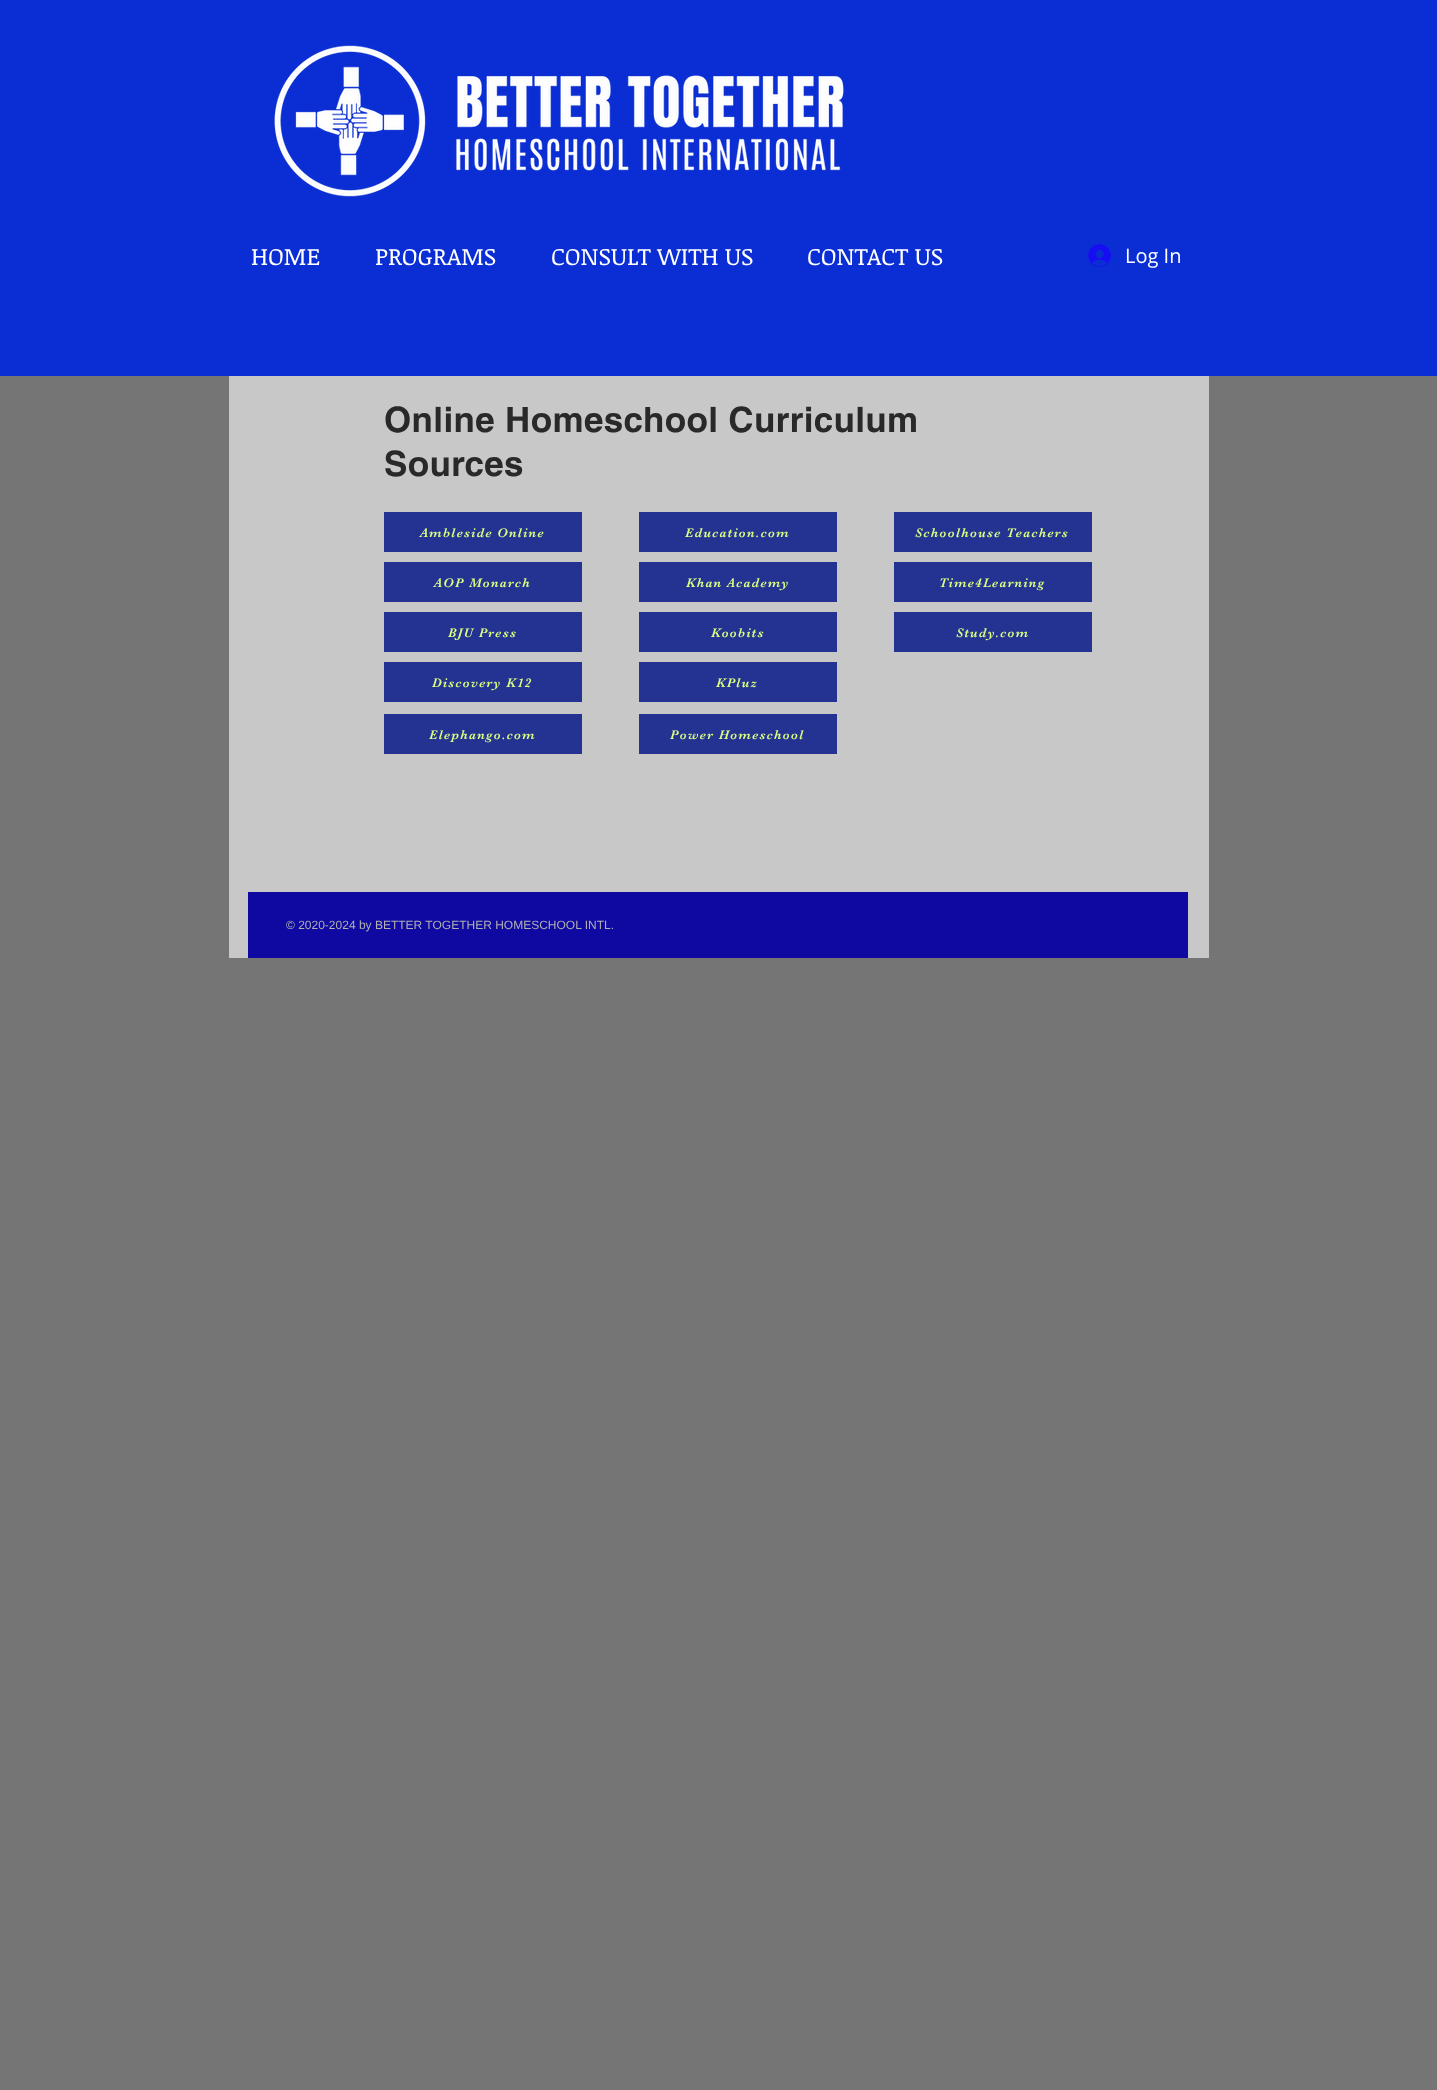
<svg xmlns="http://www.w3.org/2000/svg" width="1437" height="2090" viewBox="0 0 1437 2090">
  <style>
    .t1 { font: 24px Noticia Text; fill: #fff; }
    .t2 { font: 20px Open Sans; fill: #fff; }
    .t3 { font: bold 35px helvetica; letter-spacing: 0.35px; fill: #292929; }
    .t4 { font: 13px 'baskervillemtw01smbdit'; letter-spacing: 1.3px; fill: #daff82; }
    .t5 { font: 12px Liberation Sans; fill: #b0b0b0; }
  </style>
  <rect width="100%" height="100%" fill="#757575"/>
  <rect x="0" y="0" width="1437" height="376" fill="#0a2ed3"/>
  <image x="274" y="45" width="570" height="152" href="images/1.png"/>
  <text x="251" y="265" class="t1">HOME</text>
  <text x="375" y="265" class="t1">PROGRAMS</text>
  <text x="551" y="265" class="t1">CONSULT WITH US</text>
  <text x="807" y="265" class="t1">CONTACT US</text>
  <image x="1088" y="244" width="23" height="23" href="images/2.png"/>
  <text x="1125" y="263" class="t2">Log In</text>
  <rect x="229" y="376" width="980" height="582" fill="#c8c8c8"/>
  <text x="384" y="432" class="t3">Online Homeschool Curriculum</text>
  <text x="384" y="476" class="t3">Sources</text>
  <rect x="384" y="512" width="198" height="40" fill="#243391"/>
  <text x="420" y="537" class="t4">Ambleside Online</text>
  <rect x="639" y="512" width="198" height="40" fill="#243391"/>
  <text x="685" y="537" class="t4">Education.com</text>
  <rect x="894" y="512" width="198" height="40" fill="#243391"/>
  <text x="915" y="537" class="t4">Schoolhouse Teachers</text>
  <rect x="384" y="562" width="198" height="40" fill="#243391"/>
  <text x="434" y="587" class="t4">AOP Monarch</text>
  <rect x="639" y="562" width="198" height="40" fill="#243391"/>
  <text x="686" y="587" class="t4">Khan Academy</text>
  <rect x="894" y="562" width="198" height="40" fill="#243391"/>
  <text x="939" y="587" class="t4">Time4Learning</text>
  <rect x="384" y="612" width="198" height="40" fill="#243391"/>
  <text x="448" y="637" class="t4">BJU Press</text>
  <rect x="639" y="612" width="198" height="40" fill="#243391"/>
  <text x="711" y="637" class="t4">Koobits</text>
  <rect x="894" y="612" width="198" height="40" fill="#243391"/>
  <text x="956" y="637" class="t4">Study.com</text>
  <rect x="384" y="662" width="198" height="40" fill="#243391"/>
  <text x="432" y="687" class="t4">Discovery K12</text>
  <rect x="639" y="662" width="198" height="40" fill="#243391"/>
  <text x="716" y="687" class="t4">KPluz</text>
  <rect x="384" y="714" width="198" height="40" fill="#243391"/>
  <text x="429" y="739" class="t4">Elephango.com</text>
  <rect x="639" y="714" width="198" height="40" fill="#243391"/>
  <text x="670" y="739" class="t4">Power Homeschool</text>
  <rect x="248" y="892" width="940" height="66" fill="#0f09a1"/>
  <text x="286" y="929" class="t5">© 2020-2024 by BETTER TOGETHER HOMESCHOOL INTL.</text>
</svg>
